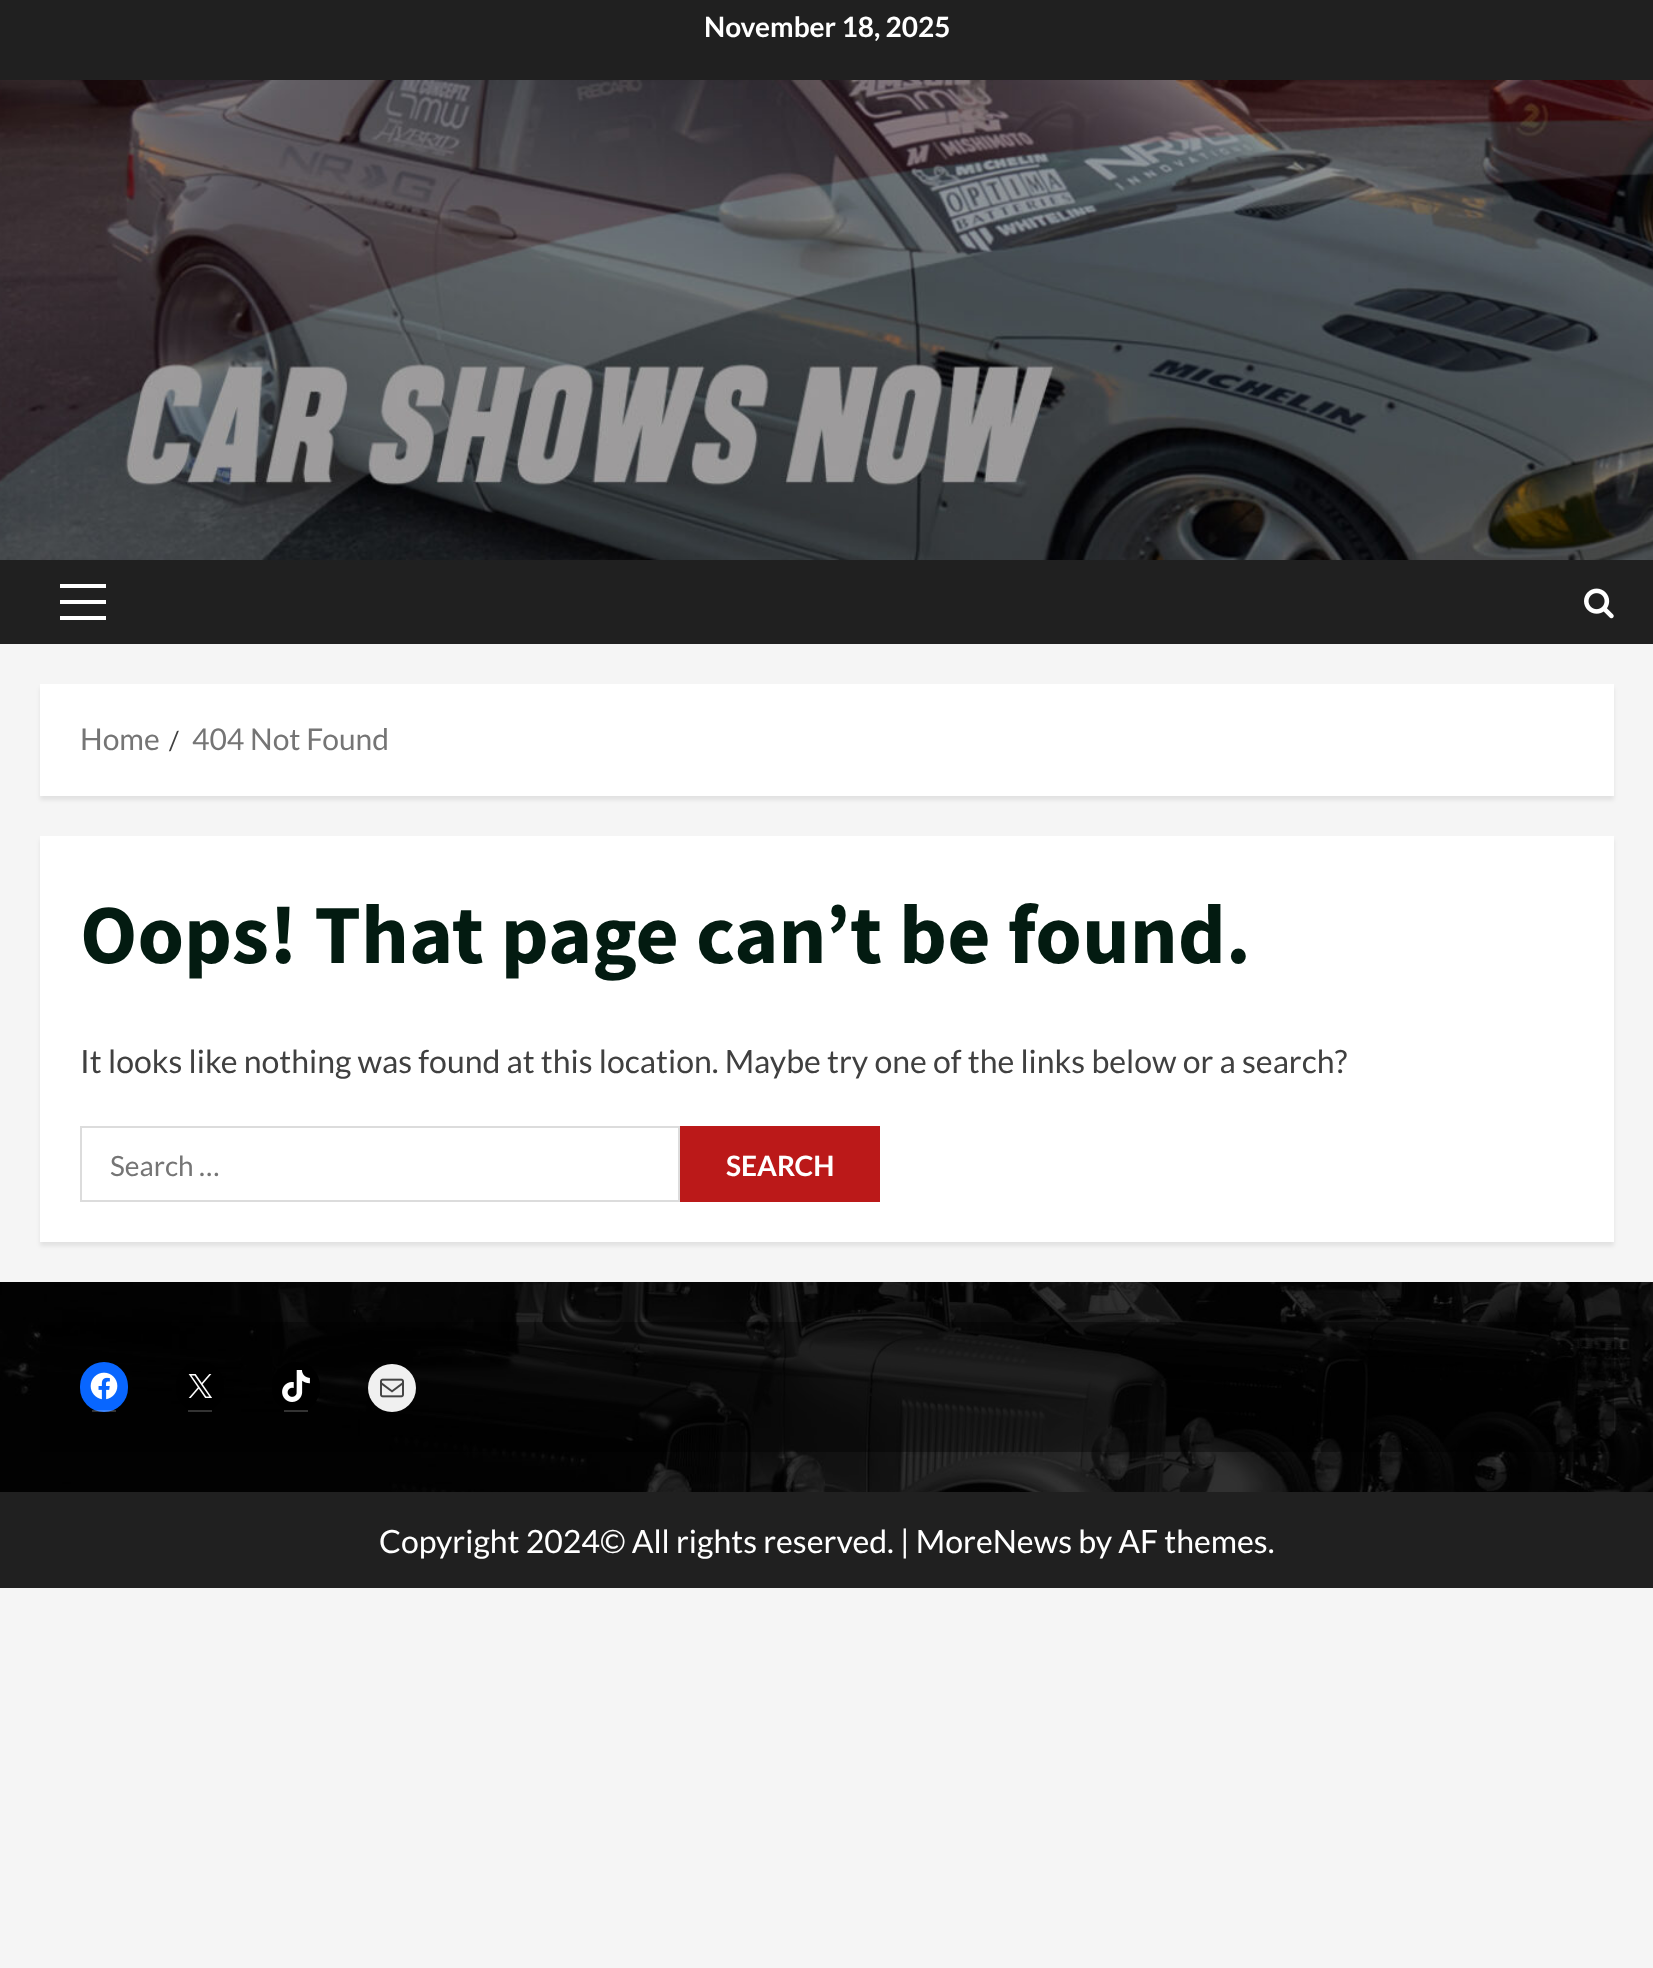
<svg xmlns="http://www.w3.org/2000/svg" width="1653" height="1968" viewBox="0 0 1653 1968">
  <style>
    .t1 { font: bold 28px Lato; fill: #fff; }
    .t2 { font: 30px Lato; fill: #757575; }
    .t3 { font: 26px Lato; fill: #404040; }
    .t4 { font: bold 84px Source Sans Pro; fill: #031b11; }
    .t5 { font: 32px Lato; fill: #404040; }
    .t6 { font: 28px Lato; fill: #757575; }
    .t7 { font: 32px Lato; fill: #fff; }
  </style>
  <rect width="100%" height="100%" fill="#f5f5f5"/>
  <rect x="0" y="0" width="1653" height="80" fill="#202020"/>
  <text x="704" y="37" class="t1">November 18, 2025</text>
  <image x="0" y="80" width="1653" height="480" href="images/1.png"/>
  <rect x="0" y="560" width="1653" height="84" fill="#202020"/>
  <rect x="60" y="600" width="46" height="4" fill="#fff"/>
  <rect x="60" y="584" width="46" height="4" fill="#fff"/>
  <rect x="60" y="616" width="46" height="4" fill="#fff"/>
  <image x="1584" y="588" width="30" height="31" href="images/2.png"/>
  <rect x="40" y="688" width="1574" height="112" fill="#00000014" filter="blur(2px)"/>
  <rect x="40" y="684" width="1574" height="112" fill="#fff"/>
  <text x="80" y="750" class="t2">Home</text>
  <text x="169" y="750" class="t3">/</text>
  <text x="192" y="750" class="t2">404 Not Found</text>
  <rect x="40" y="840" width="1574" height="406" fill="#00000014" filter="blur(2px)"/>
  <rect x="40" y="836" width="1574" height="406" fill="#fff"/>
  <text x="80" y="963" class="t4">Oops! That page can’t be found.</text>
  <text x="80" y="1073" class="t5">It looks like nothing was found at this location. Maybe try one of the links below or a search?</text>
  <rect x="81" y="1127" width="598" height="74" fill="none" stroke="#dcdcdc" stroke-width="2"/>
  <text x="110" y="1176" class="t6">Search …</text>
  <rect x="680" y="1126" width="200" height="76" fill="#bb1919"/>
  <text x="726" y="1176" class="t1">SEARCH</text>
  <image x="0" y="1282" width="1653" height="210" href="images/3.png"/>
  <rect x="40" y="1322" width="1574" height="130" fill="#00000059"/>
  <rect x="80" y="1362" width="48" height="50" rx="24" fill="#0866ff"/>
  <rect x="92" y="1410" width="24" height="2" fill="#ffffff33"/>
  <image x="90" y="1372" width="28" height="28" href="images/4.png"/>
  <rect x="176" y="1362" width="48" height="50" rx="24" fill="#000"/>
  <rect x="188" y="1410" width="24" height="2" fill="#333"/>
  <image x="188" y="1374" width="24" height="24" href="images/5.png"/>
  <rect x="272" y="1362" width="48" height="50" rx="24" fill="#000"/>
  <rect x="284" y="1410" width="24" height="2" fill="#333"/>
  <image x="282" y="1370" width="28" height="32" href="images/6.png"/>
  <circle cx="392" cy="1388" r="24" fill="#f0f0f0"/>
  <image x="380" y="1378" width="24" height="20" href="images/7.png"/>
  <rect x="0" y="1492" width="1653" height="96" fill="#202020"/>
  <text x="379" y="1553" class="t7">Copyright 2024© All rights reserved. | MoreNews by AF themes.</text>
</svg>
